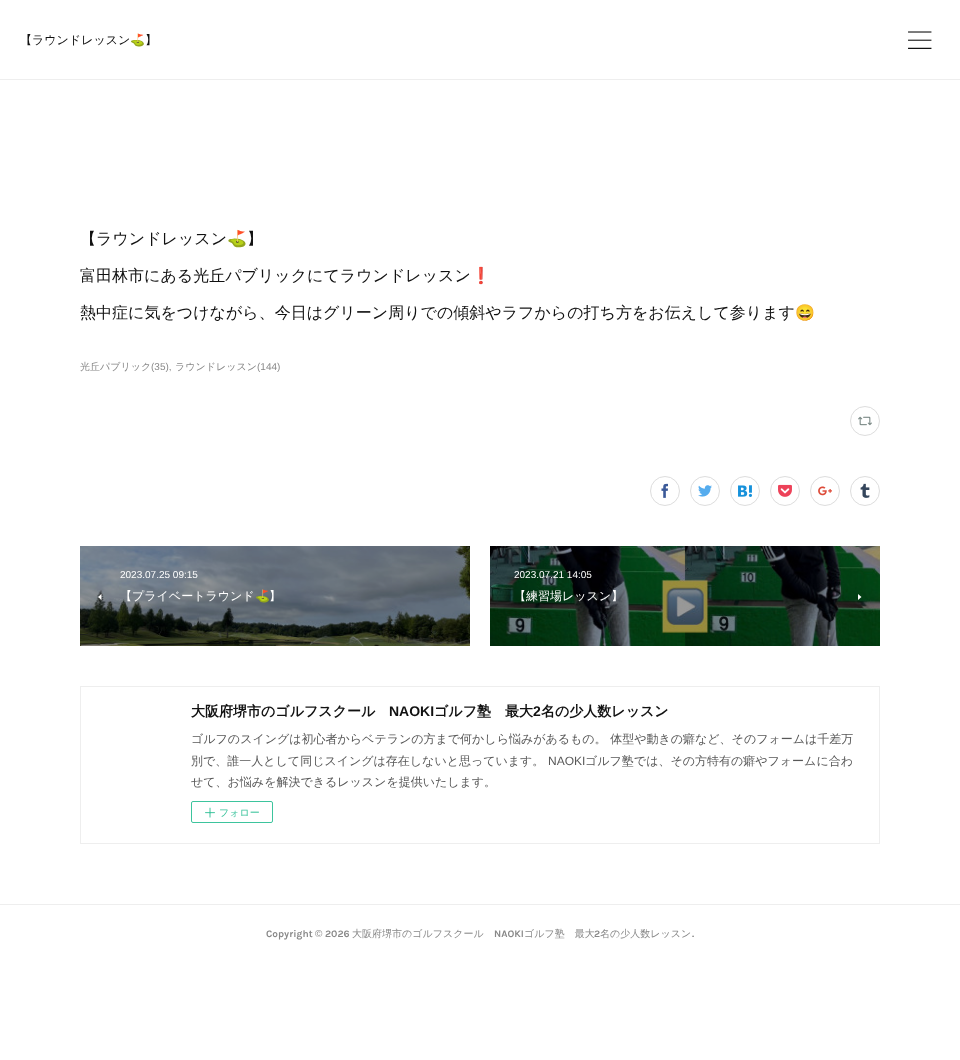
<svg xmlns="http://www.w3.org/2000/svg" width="960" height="1060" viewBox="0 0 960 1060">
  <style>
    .t1 { font: 500 12px WenQuanYi Zen Hei; fill: #111; }
    .t2 { font: 12px Noto Color Emoji; fill: #111; }
    .t3 { font: 500 16px WenQuanYi Zen Hei; fill: #111; }
    .t4 { font: 16px Noto Color Emoji; fill: #111; }
    .t5 { font: 500 10px WenQuanYi Zen Hei; fill: #888; }
    .t6 { font: 10px Liberation Sans; fill: #888; }
    .t7 { font: 10px Liberation Sans; fill: #fff; }
    .t8 { font: 500 12px WenQuanYi Zen Hei; fill: #fff; }
    .t9 { font: 12px Noto Color Emoji; fill: #fff; }
    .t10 { font: bold 14px WenQuanYi Zen Hei; fill: #111; }
    .t11 { font: bold 14px Liberation Sans; fill: #111; }
    .t12 { font: 500 12px WenQuanYi Zen Hei; fill: #585858; }
    .t13 { font: 12px Liberation Sans; fill: #585858; }
    .t14 { font: 500 10px WenQuanYi Zen Hei; fill: #3dc49d; }
    .t15 { font: bold 10px Karla; fill: #888; }
  </style>
  <rect width="100%" height="100%" fill="#fff"/>
  <rect x="0" y="79" width="960" height="1" fill="#eee"/>
  <text x="20" y="44" class="t1">【ラウンドレッスン</text>
  <text x="130" y="44" class="t2">⛳️</text>
  <text x="145" y="44" class="t1">】</text>
  <image x="908" y="31" width="24" height="18" href="images/1.png"/>
  <text x="80" y="244" class="t3">【ラウンドレッスン</text>
  <text x="227" y="244" class="t4">⛳️</text>
  <text x="247" y="244" class="t3">】</text>
  <text x="80" y="281" class="t3">富田林市にある光丘パブリックにてラウンドレッスン</text>
  <text x="471" y="281" class="t4">❗️</text>
  <text x="80" y="318" class="t3">熱中症に気をつけながら、今日はグリーン周りでの傾斜やラフからの打ち方をお伝えして参ります</text>
  <text x="795" y="318" class="t4">😄</text>
  <text x="80" y="370" class="t5">光丘パブリック</text>
  <text x="151" y="370" class="t6">(35),</text>
  <text x="175" y="370" class="t5">ラウンドレッスン</text>
  <text x="257" y="370" class="t6">(144)</text>
  <circle cx="865" cy="421" r="14.5" fill="none" stroke="#ddd"/>
  <image x="858" y="416" width="14" height="10" href="images/2.png"/>
  <circle cx="665" cy="491" r="14.5" fill="none" stroke="#ddd"/>
  <image x="661" y="483" width="7" height="15" href="images/3.png"/>
  <circle cx="705" cy="491" r="14.5" fill="none" stroke="#ddd"/>
  <image x="698" y="485" width="14" height="12" href="images/4.png"/>
  <circle cx="745" cy="491" r="14.5" fill="none" stroke="#ddd"/>
  <image x="738" y="485" width="14" height="12" href="images/5.png"/>
  <circle cx="785" cy="491" r="14.5" fill="none" stroke="#ddd"/>
  <image x="778" y="484" width="14" height="13" href="images/6.png"/>
  <circle cx="825" cy="491" r="14.5" fill="none" stroke="#ddd"/>
  <image x="818" y="486" width="14" height="10" href="images/7.png"/>
  <circle cx="865" cy="491" r="14.5" fill="none" stroke="#ddd"/>
  <image x="860" y="483" width="10" height="15" href="images/8.png"/>
  <image x="80" y="546" width="390" height="100" href="images/9.png"/>
  <text x="120" y="578" class="t7">2023.07.25 09:15</text>
  <path d="M101.5 600V594L98 597Z" fill="#fff"/>
  <text x="120" y="600" class="t8">【プライベートラウンド</text>
  <text x="255" y="600" class="t9">⛳️</text>
  <text x="269" y="600" class="t8">】</text>
  <image x="490" y="546" width="390" height="100" href="images/10.png"/>
  <text x="514" y="578" class="t7">2023.07.21 14:05</text>
  <text x="514" y="600" class="t8">【練習場レッスン】</text>
  <path d="M858 594V600L861.5 597Z" fill="#fff"/>
  <rect x="80.5" y="686.5" width="799" height="157" fill="none" stroke="#eee"/>
  <text x="191" y="716" class="t10">大阪府堺市のゴルフスクール</text>
  <text x="389" y="716" class="t11">NAOKI</text>
  <text x="434" y="716" class="t10">ゴルフ塾　最大</text>
  <text x="533" y="716" class="t11">2</text>
  <text x="541" y="716" class="t10">名の少人数レッスン</text>
  <text x="191" y="743" class="t12">ゴルフのスイングは初心者からベテランの方まで何かしら悩みがあるもの。 体型や動きの癖など、そのフォームは千差万</text>
  <text x="191" y="765" class="t12">別で、誰一人として同じスイングは存在しないと思っています。</text>
  <text x="548" y="765" class="t13">NAOKI</text>
  <text x="585" y="765" class="t12">ゴルフ塾では、その方特有の癖やフォームに合わ</text>
  <text x="191" y="786" class="t12">せて、お悩みを解決できるレッスンを提供いたします。</text>
  <rect x="191.5" y="801.5" width="81" height="21" rx="1.5" fill="none" stroke="#3dc49d"/>
  <image x="205" y="807" width="10" height="11" href="images/11.png"/>
  <text x="219" y="816" class="t14">フォロー</text>
  <rect x="0" y="904" width="960" height="1" fill="#eee"/>
  <text x="266" y="937" class="t15">Copyright</text>
  <text x="315" y="937" class="t6">©</text>
  <text x="325" y="937" class="t15">2026</text>
  <text x="352" y="937" class="t5">大阪府堺市のゴルフスクール</text>
  <text x="494" y="937" class="t15">NAOKI</text>
  <text x="524" y="937" class="t5">ゴルフ塾　最大</text>
  <text x="594" y="937" class="t15">2</text>
  <text x="600" y="937" class="t5">名の少人数レッスン</text>
  <text x="692" y="937" class="t15">.</text>
</svg>
